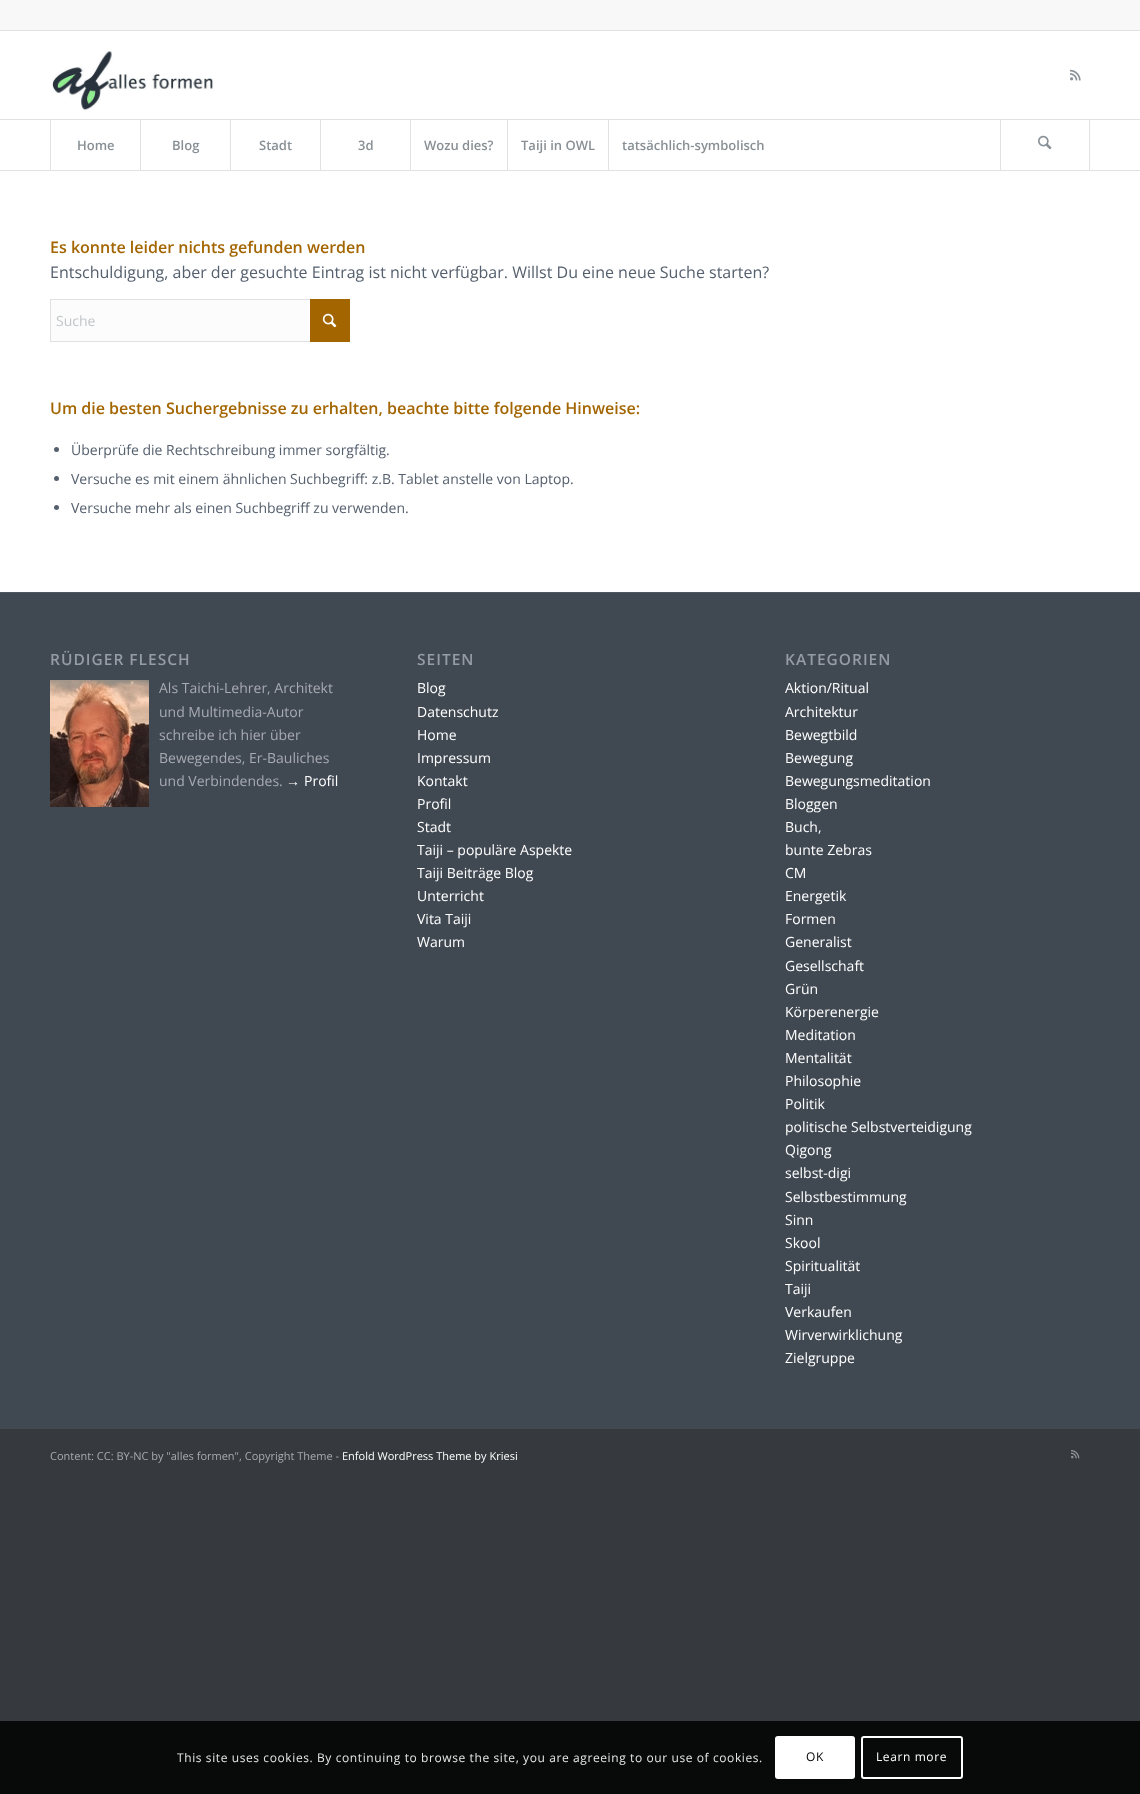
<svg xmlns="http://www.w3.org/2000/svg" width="1140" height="1794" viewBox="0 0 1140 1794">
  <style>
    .t1 { font: 600 13px Open Sans; fill: #889095; }
    .t2 { font: 600 16px Open Sans; fill: #a36500; }
    .t3 { font: 16px Open Sans; fill: #55606e; }
    .t4 { font: 14px Open Sans; fill: #c2c6c9; }
    .t5 { font: 14px Open Sans; fill: #55606e; }
    .t6 { font: 600 15.5px Open Sans; letter-spacing: 1px; fill: #969ca4; }
    .t7 { font: 14px Open Sans; fill: #a7abb1; }
    .t8 { font: 14px Liberation Sans; fill: #fff; }
    .t9 { font: 14px Open Sans; fill: #fff; }
    .t10 { font: 11px Open Sans; fill: #a7abb1; }
    .t11 { font: 11px Open Sans; fill: #fff; }
    .t12 { font: 12px Open Sans; letter-spacing: 0.6px; fill: #e6e6e6; }
    .t13 { font: 12px Open Sans; letter-spacing: 0.6px; fill: #000; }
    .t14 { font: 12px Open Sans; letter-spacing: 0.6px; fill: #fff; }
  </style>
  <rect width="100%" height="100%" fill="#36393d"/>
  <rect x="0" y="31" width="1140" height="561" fill="#fff"/>
  <rect x="0" y="0" width="1140" height="30" fill="#f8f8f8"/>
  <rect x="0" y="30" width="1140" height="1" fill="#e1e1e1"/>
  <rect x="0" y="170" width="1140" height="1" fill="#e1e1e1"/>
  <image x="50" y="51" width="164" height="60" href="images/1.png"/>
  <image x="1070" y="69" width="11" height="12" href="images/2.png"/>
  <rect x="0" y="119" width="1140" height="1" fill="#e1e1e1"/>
  <rect x="50" y="120" width="1" height="50" fill="#e1e1e1"/>
  <text x="77" y="150" class="t1">Home</text>
  <rect x="140" y="120" width="1" height="50" fill="#e1e1e1"/>
  <text x="172" y="150" class="t1">Blog</text>
  <rect x="230" y="120" width="1" height="50" fill="#e1e1e1"/>
  <text x="259" y="150" class="t1">Stadt</text>
  <rect x="320" y="120" width="1" height="50" fill="#e1e1e1"/>
  <text x="358" y="150" class="t1">3d</text>
  <rect x="410" y="120" width="1" height="50" fill="#e1e1e1"/>
  <text x="424" y="150" class="t1">Wozu dies?</text>
  <rect x="507" y="120" width="1" height="50" fill="#e1e1e1"/>
  <text x="521" y="150" class="t1">Taiji in OWL</text>
  <rect x="608" y="120" width="1" height="50" fill="#e1e1e1"/>
  <text x="622" y="150" class="t1">tatsächlich-symbolisch</text>
  <rect x="1089" y="120" width="1" height="50" fill="#e1e1e1"/>
  <rect x="1000" y="120" width="1" height="50" fill="#e1e1e1"/>
  <image x="1038" y="135" width="14" height="15" href="images/3.png"/>
  <text x="50" y="253" class="t2">Es konnte leider nichts gefunden werden</text>
  <text x="50" y="278" class="t3">Entschuldigung, aber der gesuchte Eintrag ist nicht verfügbar. Willst Du eine neue Suche starten?</text>
  <rect x="51" y="300" width="259" height="41" fill="#fcfcfc"/>
  <rect x="50.5" y="299.5" width="299" height="42" fill="none" stroke="#e1e1e1"/>
  <rect x="310" y="299" width="40" height="43" fill="#a36500"/>
  <text x="56" y="326" class="t4">Suche</text>
  <image x="322" y="313" width="15" height="15" href="images/4.png"/>
  <text x="50" y="414" class="t2">Um die besten Suchergebnisse zu erhalten, beachte bitte folgende Hinweise:</text>
  <circle cx="56.5" cy="449.5" r="2.5" fill="#55606e"/>
  <text x="71" y="455" class="t5">Überprüfe die Rechtschreibung immer sorgfältig.</text>
  <circle cx="56.5" cy="478.5" r="2.5" fill="#55606e"/>
  <text x="71" y="484" class="t5">Versuche es mit einem ähnlichen Suchbegriff: z.B. Tablet anstelle von Laptop.</text>
  <circle cx="56.5" cy="507.5" r="2.5" fill="#55606e"/>
  <text x="71" y="513" class="t5">Versuche mehr als einen Suchbegriff zu verwenden.</text>
  <rect x="0" y="593" width="1140" height="835" fill="#404852"/>
  <rect x="0" y="592" width="1140" height="1" fill="#4e5763"/>
  <text x="50" y="665" class="t6">RÜDIGER FLESCH</text>
  <image x="50" y="680" width="99" height="127" href="images/5.png"/>
  <text x="159" y="693" class="t7">Als Taichi-Lehrer, Architekt</text>
  <text x="159" y="717" class="t7">und Multimedia-Autor</text>
  <text x="159" y="740" class="t7">schreibe ich hier über</text>
  <text x="159" y="763" class="t7">Bewegendes, Er-Bauliches</text>
  <text x="159" y="786" class="t7">und Verbindendes.</text>
  <text x="286" y="786" class="t8">→</text>
  <text x="304" y="786" class="t9">Profil</text>
  <text x="417" y="665" class="t6">SEITEN</text>
  <text x="417" y="693" class="t9">Blog</text>
  <text x="417" y="717" class="t9">Datenschutz</text>
  <text x="417" y="740" class="t9">Home</text>
  <text x="417" y="763" class="t9">Impressum</text>
  <text x="417" y="786" class="t9">Kontakt</text>
  <text x="417" y="809" class="t9">Profil</text>
  <text x="417" y="832" class="t9">Stadt</text>
  <text x="417" y="855" class="t9">Taiji – populäre Aspekte</text>
  <text x="417" y="878" class="t9">Taiji Beiträge Blog</text>
  <text x="417" y="901" class="t9">Unterricht</text>
  <text x="417" y="924" class="t9">Vita Taiji</text>
  <text x="417" y="947" class="t9">Warum</text>
  <text x="785" y="665" class="t6">KATEGORIEN</text>
  <text x="785" y="693" class="t9">Aktion/Ritual</text>
  <text x="785" y="717" class="t9">Architektur</text>
  <text x="785" y="740" class="t9">Bewegtbild</text>
  <text x="785" y="763" class="t9">Bewegung</text>
  <text x="785" y="786" class="t9">Bewegungsmeditation</text>
  <text x="785" y="809" class="t9">Bloggen</text>
  <text x="785" y="832" class="t9">Buch,</text>
  <text x="785" y="855" class="t9">bunte Zebras</text>
  <text x="785" y="878" class="t9">CM</text>
  <text x="785" y="901" class="t9">Energetik</text>
  <text x="785" y="924" class="t9">Formen</text>
  <text x="785" y="947" class="t9">Generalist</text>
  <text x="785" y="971" class="t9">Gesellschaft</text>
  <text x="785" y="994" class="t9">Grün</text>
  <text x="785" y="1017" class="t9">Körperenergie</text>
  <text x="785" y="1040" class="t9">Meditation</text>
  <text x="785" y="1063" class="t9">Mentalität</text>
  <text x="785" y="1086" class="t9">Philosophie</text>
  <text x="785" y="1109" class="t9">Politik</text>
  <text x="785" y="1132" class="t9">politische Selbstverteidigung</text>
  <text x="785" y="1155" class="t9">Qigong</text>
  <text x="785" y="1178" class="t9">selbst-digi</text>
  <text x="785" y="1202" class="t9">Selbstbestimmung</text>
  <text x="785" y="1225" class="t9">Sinn</text>
  <text x="785" y="1248" class="t9">Skool</text>
  <text x="785" y="1271" class="t9">Spiritualität</text>
  <text x="785" y="1294" class="t9">Taiji</text>
  <text x="785" y="1317" class="t9">Verkaufen</text>
  <text x="785" y="1340" class="t9">Wirverwirklichung</text>
  <text x="785" y="1363" class="t9">Zielgruppe</text>
  <rect x="0" y="1428" width="1140" height="1" fill="#45494d"/>
  <text x="50" y="1460" class="t10">Content: CC: BY-NC by "alles formen", Copyright Theme -</text>
  <text x="342" y="1460" class="t11">Enfold WordPress Theme by Kriesi</text>
  <image x="1071" y="1450" width="9" height="9" href="images/6.png"/>
  <rect x="0" y="1721" width="1140" height="73" fill="#080909"/>
  <text x="177" y="1762" class="t12">This site uses cookies. By continuing to browse the site, you are agreeing to our use of cookies.</text>
  <rect x="775" y="1736" width="80" height="43" rx="3" fill="#fff"/>
  <text x="806" y="1761" class="t13">OK</text>
  <rect x="862" y="1737" width="100" height="41" rx="2" fill="none" stroke="#fff" stroke-width="2"/>
  <text x="876" y="1761" class="t14">Learn more</text>
</svg>
